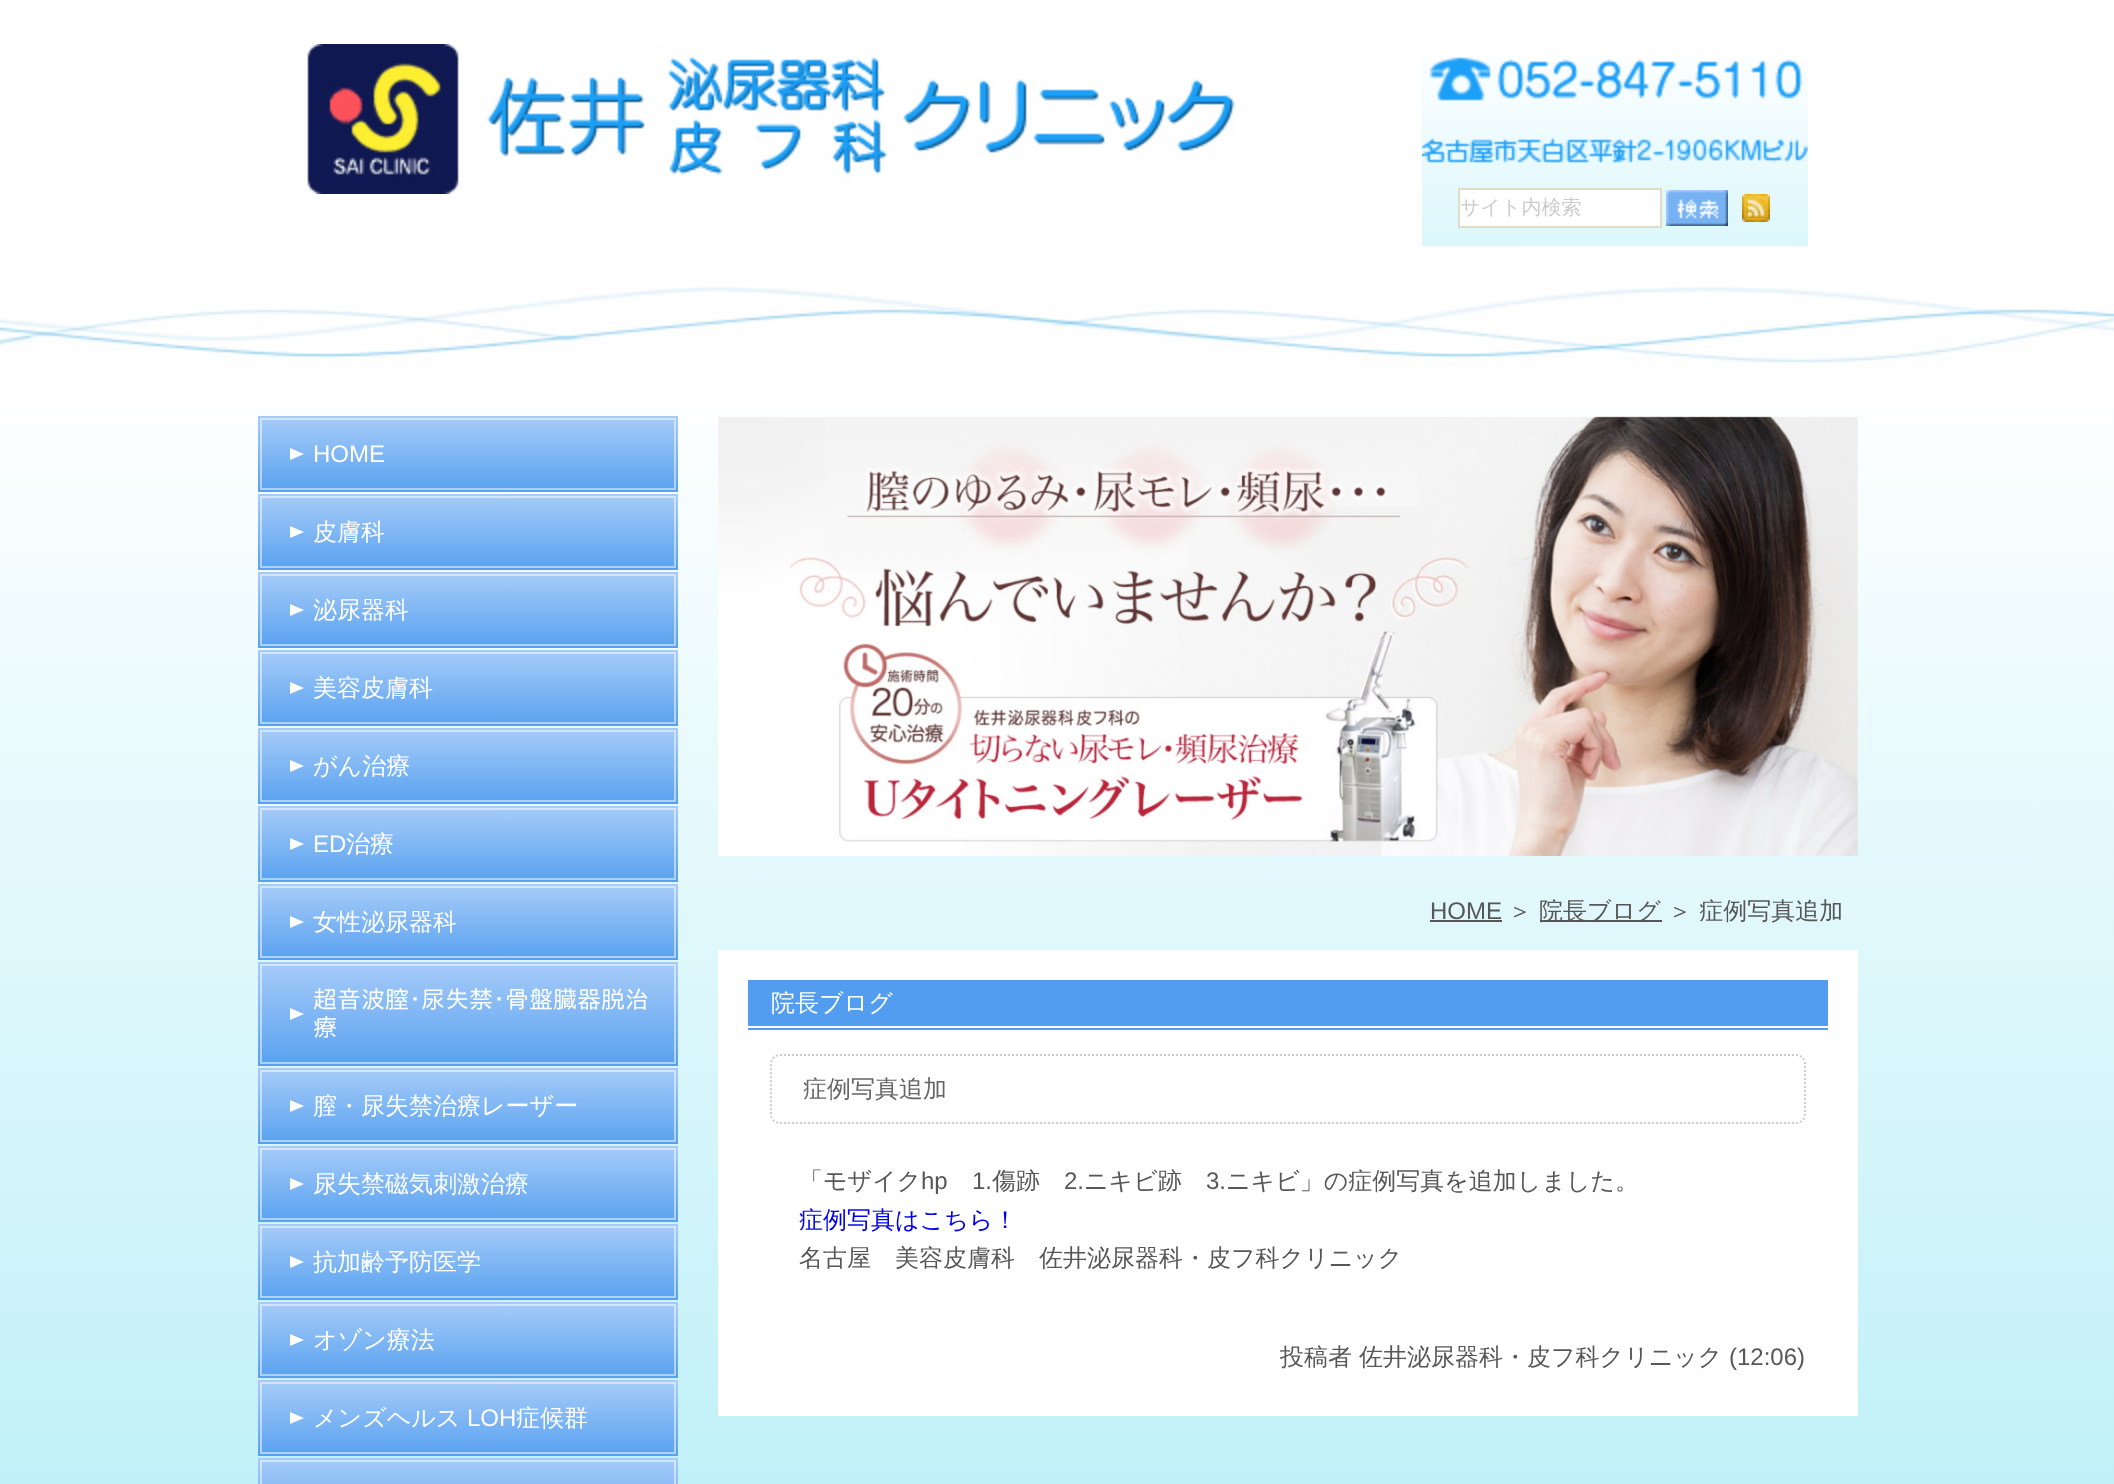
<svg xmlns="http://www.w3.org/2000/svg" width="2114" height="1484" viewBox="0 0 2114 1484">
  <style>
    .t1 { font: 500 20px WenQuanYi Zen Hei; fill: #ccc; }
    .t2 { font: 24px Liberation Sans; fill: #fff; }
    .t3 { font: 500 24px WenQuanYi Zen Hei; fill: #fff; }
    .t4 { font: 24px IPAPGothic; fill: #fff; }
    .t5 { font: 24px Liberation Sans; fill: #575757; }
    .t6 { font: 500 24px WenQuanYi Zen Hei; fill: #575757; }
    .t7 { font: 500 24px WenQuanYi Zen Hei; fill: #666; }
    .t8 { font: 500 24px WenQuanYi Zen Hei; fill: #00e; }
  </style>
  <defs>
    <linearGradient id="g1" gradientUnits="userSpaceOnUse" x1="1615" y1="52" x2="1615" y2="246"><stop offset="0" stop-color="#fdfeff"/><stop offset="1" stop-color="#dbf7fb"/></linearGradient>
    <linearGradient id="g2" gradientUnits="userSpaceOnUse" x1="1057" y1="360" x2="1057" y2="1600"><stop offset="0" stop-color="#fff"/><stop offset="1" stop-color="#baeff7"/></linearGradient>
    <linearGradient id="g3" gradientUnits="userSpaceOnUse" x1="468" y1="416" x2="468" y2="492"><stop offset="0" stop-color="#a7ccf8"/><stop offset="1" stop-color="#58a1f0"/></linearGradient>
    <linearGradient id="g4" gradientUnits="userSpaceOnUse" x1="468" y1="494" x2="468" y2="570"><stop offset="0" stop-color="#a7ccf8"/><stop offset="1" stop-color="#58a1f0"/></linearGradient>
    <linearGradient id="g5" gradientUnits="userSpaceOnUse" x1="468" y1="572" x2="468" y2="648"><stop offset="0" stop-color="#a7ccf8"/><stop offset="1" stop-color="#58a1f0"/></linearGradient>
    <linearGradient id="g6" gradientUnits="userSpaceOnUse" x1="468" y1="650" x2="468" y2="726"><stop offset="0" stop-color="#a7ccf8"/><stop offset="1" stop-color="#58a1f0"/></linearGradient>
    <linearGradient id="g7" gradientUnits="userSpaceOnUse" x1="468" y1="728" x2="468" y2="804"><stop offset="0" stop-color="#a7ccf8"/><stop offset="1" stop-color="#58a1f0"/></linearGradient>
    <linearGradient id="g8" gradientUnits="userSpaceOnUse" x1="468" y1="806" x2="468" y2="882"><stop offset="0" stop-color="#a7ccf8"/><stop offset="1" stop-color="#58a1f0"/></linearGradient>
    <linearGradient id="g9" gradientUnits="userSpaceOnUse" x1="468" y1="884" x2="468" y2="960"><stop offset="0" stop-color="#a7ccf8"/><stop offset="1" stop-color="#58a1f0"/></linearGradient>
    <linearGradient id="g10" gradientUnits="userSpaceOnUse" x1="468" y1="962" x2="468" y2="1066"><stop offset="0" stop-color="#a7ccf8"/><stop offset="1" stop-color="#58a1f0"/></linearGradient>
    <linearGradient id="g11" gradientUnits="userSpaceOnUse" x1="468" y1="1068" x2="468" y2="1144"><stop offset="0" stop-color="#a7ccf8"/><stop offset="1" stop-color="#58a1f0"/></linearGradient>
    <linearGradient id="g12" gradientUnits="userSpaceOnUse" x1="468" y1="1146" x2="468" y2="1222"><stop offset="0" stop-color="#a7ccf8"/><stop offset="1" stop-color="#58a1f0"/></linearGradient>
    <linearGradient id="g13" gradientUnits="userSpaceOnUse" x1="468" y1="1224" x2="468" y2="1300"><stop offset="0" stop-color="#a7ccf8"/><stop offset="1" stop-color="#58a1f0"/></linearGradient>
    <linearGradient id="g14" gradientUnits="userSpaceOnUse" x1="468" y1="1302" x2="468" y2="1378"><stop offset="0" stop-color="#a7ccf8"/><stop offset="1" stop-color="#58a1f0"/></linearGradient>
    <linearGradient id="g15" gradientUnits="userSpaceOnUse" x1="468" y1="1380" x2="468" y2="1456"><stop offset="0" stop-color="#a7ccf8"/><stop offset="1" stop-color="#58a1f0"/></linearGradient>
    <linearGradient id="g16" gradientUnits="userSpaceOnUse" x1="468" y1="1458" x2="468" y2="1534"><stop offset="0" stop-color="#a7ccf8"/><stop offset="1" stop-color="#58a1f0"/></linearGradient>
  </defs>
  <rect width="100%" height="100%" fill="#fff"/>
  <image x="0" y="287" width="2114" height="81" href="images/1.png"/>
  <image x="307" y="44" width="928" height="150" href="images/2.png"/>
  <rect x="1422" y="55" width="386" height="191" fill="url(#g1)"/>
  <image x="1422" y="57" width="386" height="106" href="images/3.png"/>
  <rect x="1459" y="189" width="202" height="38" fill="#fff" stroke="#e1dcc8" stroke-width="2"/>
  <text x="1460" y="214" class="t1">サイト内検索</text>
  <image x="1666" y="190" width="62" height="36" href="images/4.png"/>
  <image x="1742" y="194" width="28" height="28" href="images/5.png"/>
  <rect x="0" y="405" width="2114" height="1079" fill="url(#g2)"/>
  <rect x="258" y="416" width="420" height="76" fill="url(#g3)"/>
  <path d="M290 460V448L304 454Z" fill="#fff"/>
  <rect x="261" y="419" width="414" height="70" fill="none" stroke="#ffffff80" stroke-width="2"/>
  <text x="313" y="462" class="t2">HOME</text>
  <rect x="258" y="494" width="420" height="76" fill="url(#g4)"/>
  <path d="M290 538V526L304 532Z" fill="#fff"/>
  <rect x="261" y="497" width="414" height="70" fill="none" stroke="#ffffff80" stroke-width="2"/>
  <text x="313" y="540" class="t3">皮膚科</text>
  <rect x="258" y="572" width="420" height="76" fill="url(#g5)"/>
  <path d="M290 616V604L304 610Z" fill="#fff"/>
  <rect x="261" y="575" width="414" height="70" fill="none" stroke="#ffffff80" stroke-width="2"/>
  <text x="313" y="618" class="t3">泌尿器科</text>
  <rect x="258" y="650" width="420" height="76" fill="url(#g6)"/>
  <path d="M290 694V682L304 688Z" fill="#fff"/>
  <rect x="261" y="653" width="414" height="70" fill="none" stroke="#ffffff80" stroke-width="2"/>
  <text x="313" y="696" class="t3">美容皮膚科</text>
  <rect x="258" y="728" width="420" height="76" fill="url(#g7)"/>
  <path d="M290 772V760L304 766Z" fill="#fff"/>
  <rect x="261" y="731" width="414" height="70" fill="none" stroke="#ffffff80" stroke-width="2"/>
  <text x="313" y="774" class="t3">がん治療</text>
  <rect x="258" y="806" width="420" height="76" fill="url(#g8)"/>
  <path d="M290 850V838L304 844Z" fill="#fff"/>
  <rect x="261" y="809" width="414" height="70" fill="none" stroke="#ffffff80" stroke-width="2"/>
  <text x="313" y="852" class="t2">ED</text>
  <text x="346" y="852" class="t3">治療</text>
  <rect x="258" y="884" width="420" height="76" fill="url(#g9)"/>
  <path d="M290 928V916L304 922Z" fill="#fff"/>
  <rect x="261" y="887" width="414" height="70" fill="none" stroke="#ffffff80" stroke-width="2"/>
  <text x="313" y="930" class="t3">女性泌尿器科</text>
  <rect x="258" y="962" width="420" height="104" fill="url(#g10)"/>
  <path d="M290 1020V1008L304 1014Z" fill="#fff"/>
  <rect x="261" y="965" width="414" height="98" fill="none" stroke="#ffffff80" stroke-width="2"/>
  <text x="313" y="1008" class="t4">超音波膣･尿失禁･骨盤臓器脱治</text>
  <text x="313" y="1036" class="t4">療</text>
  <rect x="258" y="1068" width="420" height="76" fill="url(#g11)"/>
  <path d="M290 1112V1100L304 1106Z" fill="#fff"/>
  <rect x="261" y="1071" width="414" height="70" fill="none" stroke="#ffffff80" stroke-width="2"/>
  <text x="313" y="1114" class="t3">膣・尿失禁治療レーザー</text>
  <rect x="258" y="1146" width="420" height="76" fill="url(#g12)"/>
  <path d="M290 1190V1178L304 1184Z" fill="#fff"/>
  <rect x="261" y="1149" width="414" height="70" fill="none" stroke="#ffffff80" stroke-width="2"/>
  <text x="313" y="1192" class="t3">尿失禁磁気刺激治療</text>
  <rect x="258" y="1224" width="420" height="76" fill="url(#g13)"/>
  <path d="M290 1268V1256L304 1262Z" fill="#fff"/>
  <rect x="261" y="1227" width="414" height="70" fill="none" stroke="#ffffff80" stroke-width="2"/>
  <text x="313" y="1270" class="t3">抗加齢予防医学</text>
  <rect x="258" y="1302" width="420" height="76" fill="url(#g14)"/>
  <path d="M290 1346V1334L304 1340Z" fill="#fff"/>
  <rect x="261" y="1305" width="414" height="70" fill="none" stroke="#ffffff80" stroke-width="2"/>
  <text x="313" y="1348" class="t3">オゾン療法</text>
  <rect x="258" y="1380" width="420" height="76" fill="url(#g15)"/>
  <path d="M290 1424V1412L304 1418Z" fill="#fff"/>
  <rect x="261" y="1383" width="414" height="70" fill="none" stroke="#ffffff80" stroke-width="2"/>
  <text x="313" y="1426" class="t3">メンズヘルス</text>
  <text x="467" y="1426" class="t2">LOH</text>
  <text x="516" y="1426" class="t3">症候群</text>
  <rect x="258" y="1458" width="420" height="26" fill="url(#g16)"/>
  <rect x="261" y="1461" width="414" height="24" fill="none" stroke="#ffffff80" stroke-width="2"/>
  <image x="718" y="416" width="1140" height="440" href="images/6.png"/>
  <text x="1430" y="919" class="t5">HOME</text>
  <rect x="1430" y="920" width="72" height="2" fill="#575757"/>
  <text x="1508" y="919" class="t6">＞</text>
  <rect x="1540" y="920" width="122" height="2" fill="#575757"/>
  <text x="1539" y="919" class="t6">院長ブログ</text>
  <text x="1668" y="919" class="t6">＞ 症例写真追加</text>
  <rect x="718" y="950" width="1140" height="466" fill="#fff"/>
  <rect x="748" y="980" width="1080" height="50" fill="#539df0"/>
  <text x="771" y="1011" class="t3">院長ブログ</text>
  <rect x="748" y="1026" width="1080" height="2" fill="#fff"/>
  <path d="M780 1055H1796C1801 1055 1805 1059 1805 1064V1114C1805 1119 1801 1123 1796 1123H780C775 1123 771 1119 771 1114V1064C771 1059 775 1055 780 1055Z" fill="none" stroke="#ccc" stroke-width="2" stroke-dasharray="2 2"/>
  <text x="803" y="1097" class="t7">症例写真追加</text>
  <text x="799" y="1189" class="t6">「モザイク</text>
  <text x="921" y="1189" class="t5">hp</text>
  <text x="972" y="1189" class="t5">1.</text>
  <text x="992" y="1189" class="t6">傷跡</text>
  <text x="1064" y="1189" class="t5">2.</text>
  <text x="1084" y="1189" class="t6">ニキビ跡</text>
  <text x="1206" y="1189" class="t5">3.</text>
  <text x="1226" y="1189" class="t6">ニキビ」の症例写真を追加しました。</text>
  <text x="799" y="1228" class="t8">症例写真はこちら！</text>
  <text x="799" y="1266" class="t6">名古屋　美容皮膚科　佐井泌尿器科・皮フ科クリニック</text>
  <text x="1280" y="1365" class="t6">投稿者</text>
  <text x="1359" y="1365" class="t6">佐井泌尿器科・皮フ科クリニック</text>
  <text x="1729" y="1365" class="t5">(12:06)</text>
</svg>
